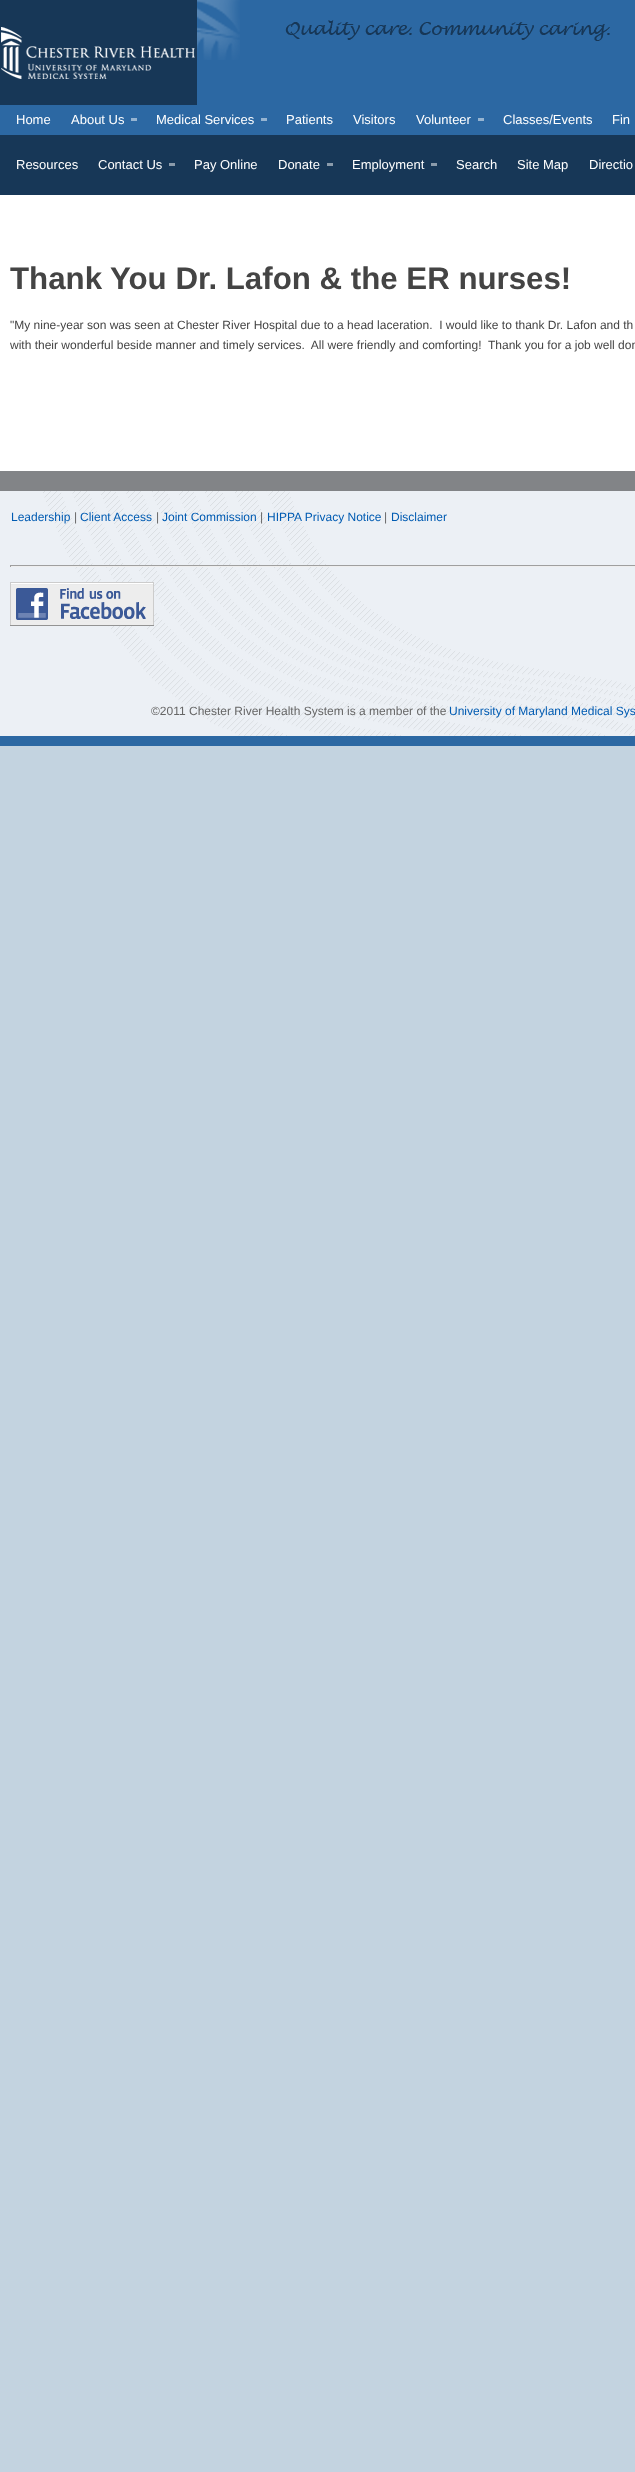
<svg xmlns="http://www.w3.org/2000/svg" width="635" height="2472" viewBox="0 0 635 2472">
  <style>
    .t1 { font: 13px Liberation Sans; fill: #fff; }
    .t2 { font: bold 31.25px Liberation Sans; fill: #444; }
    .t3 { font: 12px Liberation Sans; fill: #444; }
    .t4 { font: 12px Liberation Sans; fill: #005bb2; }
    .t5 { font: 12px Liberation Sans; fill: #666; }
  </style>
  <rect width="100%" height="100%" fill="#c3d3e0"/>
  <rect x="0" y="0" width="635" height="135" fill="#2c68a3"/>
  <rect x="0" y="0" width="197" height="105" fill="#173757"/>
  <image x="1" y="27" width="194" height="52" href="images/1.png"/>
  <image x="197" y="0" width="413" height="60" href="images/2.png"/>
  <text x="16" y="124" class="t1">Home</text>
  <text x="71" y="124" class="t1">About Us</text>
  <rect x="131" y="118" width="6" height="3" fill="#96b4d1"/>
  <text x="156" y="124" class="t1">Medical Services</text>
  <rect x="261" y="118" width="6" height="3" fill="#96b4d1"/>
  <text x="286" y="124" class="t1">Patients</text>
  <text x="353" y="124" class="t1">Visitors</text>
  <text x="416" y="124" class="t1">Volunteer</text>
  <rect x="478" y="118" width="6" height="3" fill="#96b4d1"/>
  <text x="503" y="124" class="t1">Classes/Events</text>
  <text x="612" y="124" class="t1">Fin</text>
  <rect x="0" y="135" width="635" height="60" fill="#173757"/>
  <text x="16" y="169" class="t1">Resources</text>
  <text x="98" y="169" class="t1">Contact Us</text>
  <rect x="169" y="163" width="6" height="3" fill="#8b9bab"/>
  <text x="194" y="169" class="t1">Pay Online</text>
  <text x="278" y="169" class="t1">Donate</text>
  <rect x="327" y="163" width="6" height="3" fill="#8b9bab"/>
  <text x="352" y="169" class="t1">Employment</text>
  <rect x="431" y="163" width="6" height="3" fill="#8b9bab"/>
  <text x="456" y="169" class="t1">Search</text>
  <text x="517" y="169" class="t1">Site Map</text>
  <text x="589" y="169" class="t1">Directio</text>
  <rect x="0" y="195" width="635" height="276" fill="#fff"/>
  <text x="10" y="289" class="t2">Thank</text>
  <text x="110" y="289" class="t2">You Dr. Lafon &amp; the ER nurses!</text>
  <text x="10" y="329" class="t3" xml:space="preserve">"My nine-year son was seen at Chester River Hospital due to a head laceration.  I would like to thank Dr. Lafon and th</text>
  <text x="10" y="349" class="t3" xml:space="preserve">with their wonderful beside manner and timely services.  All were friendly and comforting!  Thank you for a job well don</text>
  <rect x="0" y="491" width="635" height="245" fill="#ecf0f5"/>
  <rect x="0" y="471" width="635" height="20" fill="#828487"/>
  <image x="43" y="491" width="592" height="245" href="images/3.png"/>
  <text x="11" y="521" class="t4">Leadership</text>
  <text x="74" y="521" class="t5">|</text>
  <text x="80" y="521" class="t4">Client Access</text>
  <text x="156" y="521" class="t5">|</text>
  <text x="162" y="521" class="t4">Joint Commission</text>
  <text x="260" y="521" class="t5">|</text>
  <text x="267" y="521" class="t4">HIPPA Privacy Notice</text>
  <text x="384" y="521" class="t5">|</text>
  <text x="391" y="521" class="t4">Disclaimer</text>
  <rect x="10" y="565" width="625" height="1" fill="#9f9f9f"/>
  <rect x="10" y="566" width="625" height="1" fill="#eee"/>
  <rect x="10" y="565" width="1" height="2" fill="#9f9f9f"/>
  <image x="10" y="582" width="144" height="44" href="images/4.png"/>
  <text x="151" y="715" class="t5">©2011 Chester River Health System is a member of the</text>
  <text x="449" y="715" class="t4">University of Maryland Medical Sys</text>
  <rect x="0" y="736" width="635" height="10" fill="#2c68a3"/>
</svg>
